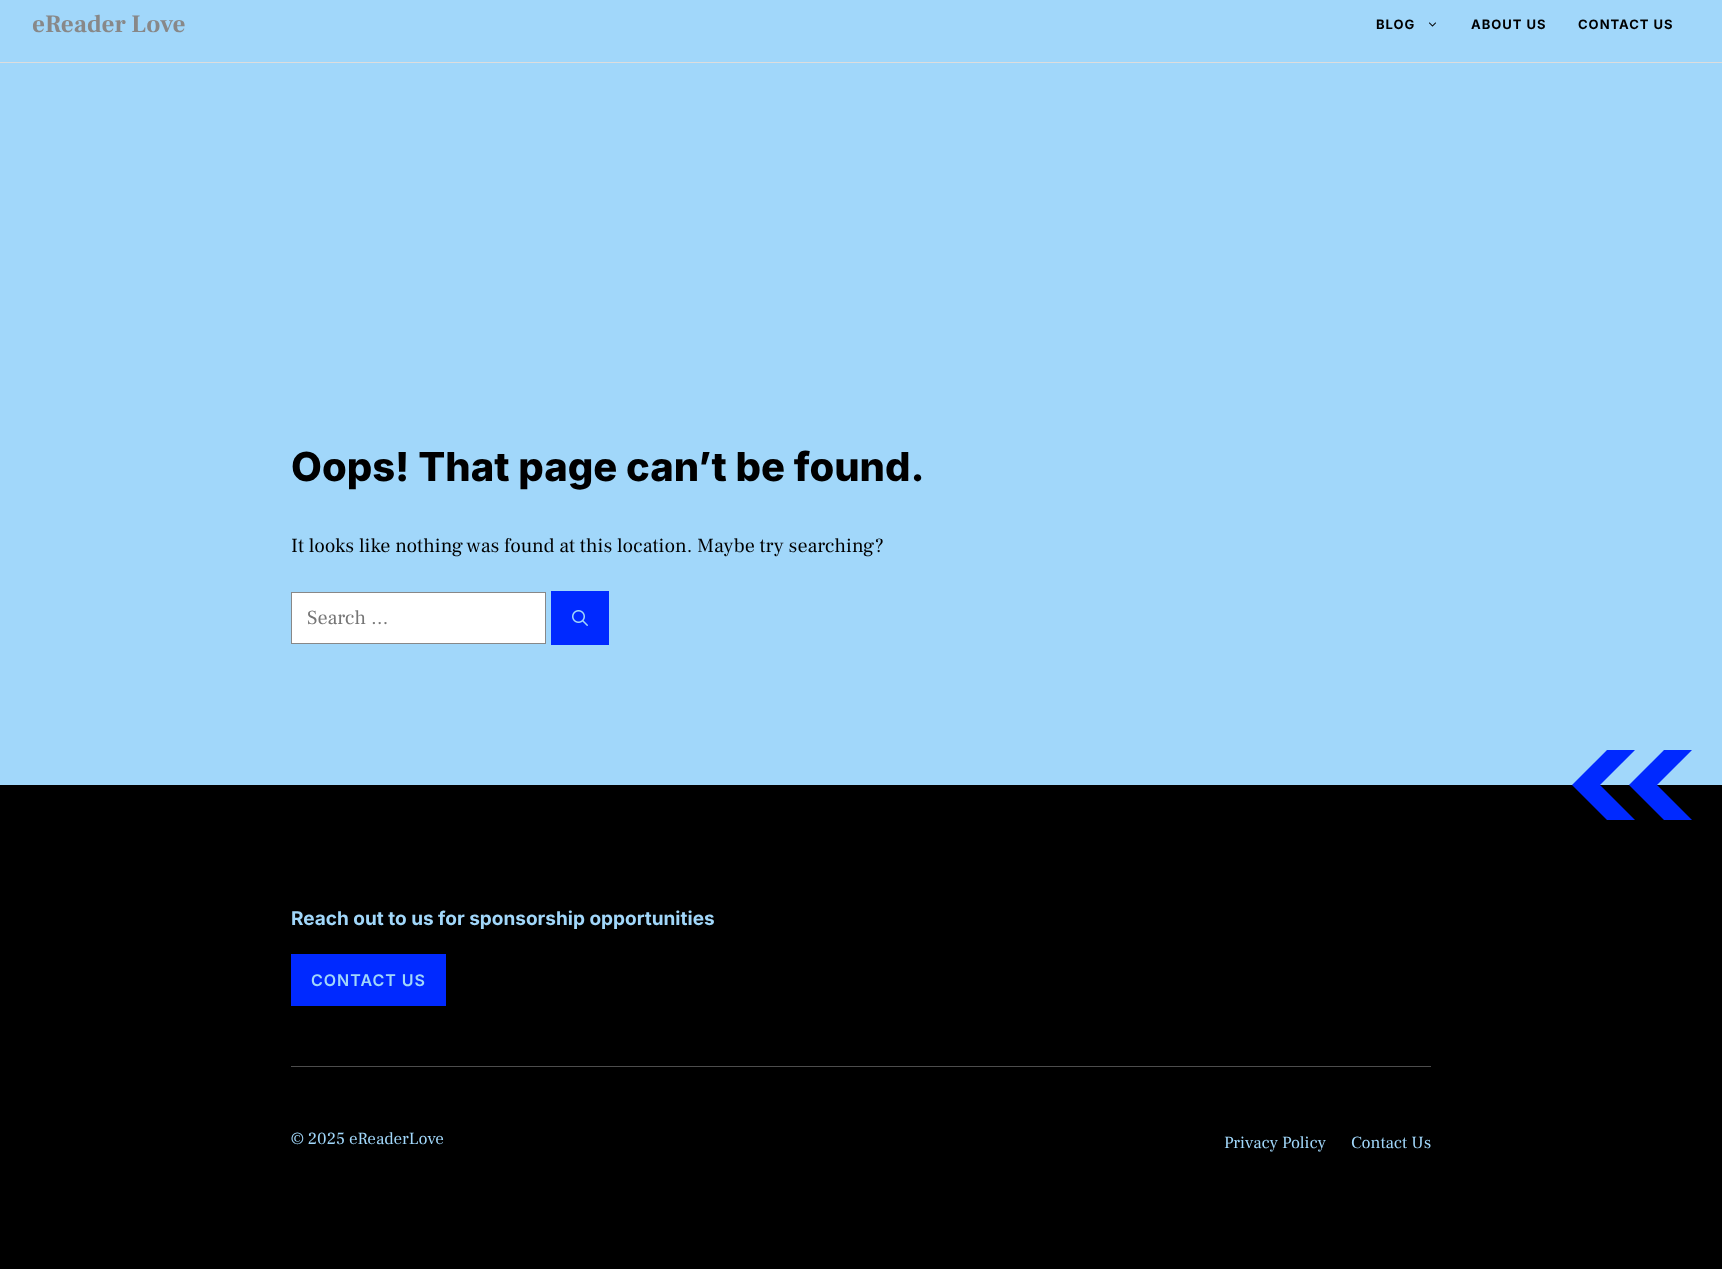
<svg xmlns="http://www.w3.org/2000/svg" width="1722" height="1269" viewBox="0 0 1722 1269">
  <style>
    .t1 { font: bold 25px Frank Ruhl Libre; fill: #888; }
    .t2 { font: bold 13px Inter; letter-spacing: 1px; fill: #000; }
    .t3 { font: 800 40px Inter; fill: #000; }
    .t4 { font: 20px Frank Ruhl Libre; fill: #000; }
    .t5 { font: 20px Frank Ruhl Libre; fill: #757575; }
    .t6 { font: bold 19px Inter; fill: #a1d7fa; }
    .t7 { font: 600 16px Inter; letter-spacing: 1px; fill: #a1d7fa; }
    .t8 { font: 17px Frank Ruhl Libre; fill: #a1d7fa; }
  </style>
  <rect width="100%" height="100%" fill="#a1d7fa"/>
  <rect x="0" y="62" width="1722" height="1" fill="#ddd"/>
  <text x="32" y="32" class="t1">eReader Love</text>
  <text x="1376" y="29" class="t2">BLOG</text>
  <image x="1429" y="22" width="7" height="5" href="images/1.png"/>
  <text x="1471" y="29" class="t2">ABOUT US</text>
  <text x="1578" y="29" class="t2">CONTACT US</text>
  <text x="291" y="481" class="t3">Oops! That page can’t be found.</text>
  <text x="291" y="552" class="t4">It looks like nothing was found at this location. Maybe try searching?</text>
  <rect x="291.5" y="592.5" width="254" height="51" fill="#fff" stroke="#888"/>
  <text x="307" y="624" class="t5">Search …</text>
  <rect x="551" y="591" width="58" height="54" fill="#0029ff"/>
  <image x="572" y="610" width="16" height="16" href="images/2.png"/>
  <rect x="0" y="785" width="1722" height="484" fill="#000"/>
  <path d="M1600 785L1635 750H1607L1572 785L1607 820H1635Z" fill="#0029ff"/>
  <path d="M1657 785L1692 750H1664L1629 785L1664 820H1692Z" fill="#0029ff"/>
  <text x="291" y="925" class="t6">Reach out to us for sponsorship opportunities</text>
  <rect x="291" y="954" width="155" height="52" fill="#0029ff"/>
  <text x="311" y="986" class="t7">CONTACT US</text>
  <rect x="291" y="1066" width="1140" height="1" fill="#4d4d4d"/>
  <text x="291" y="1144" class="t8">© 2025 eReaderLove</text>
  <text x="1224" y="1148" class="t8">Privacy Policy</text>
  <text x="1351" y="1148" class="t8">Contact Us</text>
</svg>
